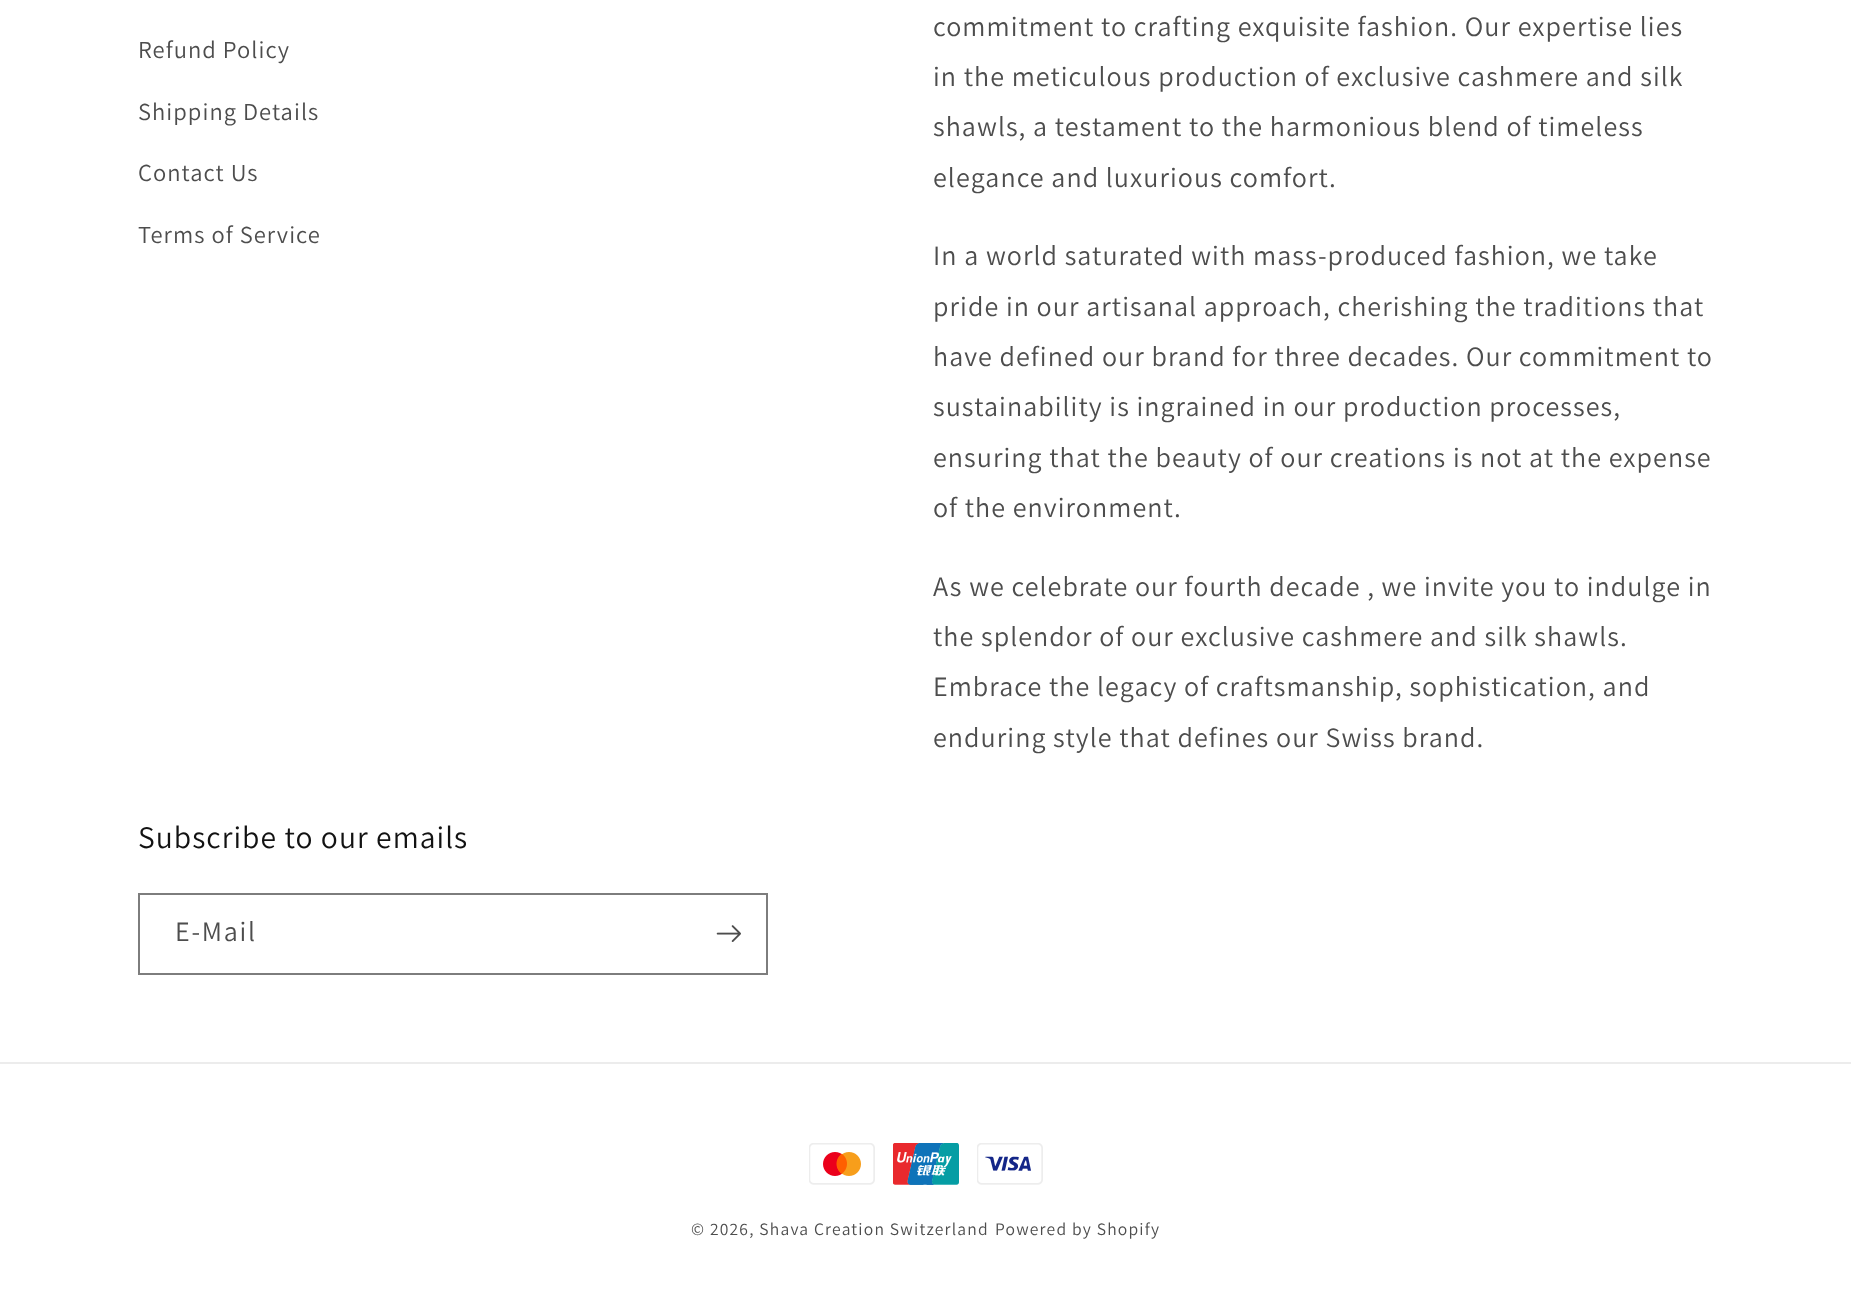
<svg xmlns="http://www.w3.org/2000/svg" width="1851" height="1308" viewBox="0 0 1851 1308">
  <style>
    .t1 { font: 24.5px Assistant; letter-spacing: 1.05px; fill: #4d4d4d; }
    .t2 { font: 28px Assistant; letter-spacing: 1.05px; fill: #4d4d4d; }
    .t3 { font: 31.5px Assistant; letter-spacing: 1.05px; fill: #121212; }
    .t4 { font: 28px Assistant; letter-spacing: 1.75px; fill: #4d4d4d; }
    .t5 { font: 17.5px Assistant; letter-spacing: 1.2px; fill: #4d4d4d; }
  </style>
  <rect width="100%" height="100%" fill="#fff"/>
  <text x="138" y="58" class="t1">Refund Policy</text>
  <text x="138" y="120" class="t1">Shipping Details</text>
  <text x="138" y="181" class="t1">Contact Us</text>
  <text x="138" y="243" class="t1">Terms of Service</text>
  <text x="933" y="36" class="t2">commitment to crafting exquisite fashion. Our expertise lies</text>
  <text x="933" y="86" class="t2">in the meticulous production of exclusive cashmere and silk</text>
  <text x="933" y="136" class="t2">shawls, a testament to the harmonious blend of timeless</text>
  <text x="933" y="187" class="t2">elegance and luxurious comfort.</text>
  <text x="933" y="265" class="t2">In a world saturated with mass-produced fashion, we take</text>
  <text x="933" y="316" class="t2">pride in our artisanal approach, cherishing the traditions that</text>
  <text x="933" y="366" class="t2">have defined our brand for three decades. Our commitment to</text>
  <text x="933" y="416" class="t2">sustainability is ingrained in our production processes,</text>
  <text x="933" y="467" class="t2">ensuring that the beauty of our creations is not at the expense</text>
  <text x="933" y="517" class="t2">of the environment.</text>
  <text x="933" y="596" class="t2">As we celebrate our fourth decade , we invite you to indulge in</text>
  <text x="933" y="646" class="t2">the splendor of our exclusive cashmere and silk shawls.</text>
  <text x="933" y="696" class="t2">Embrace the legacy of craftsmanship, sophistication, and</text>
  <text x="933" y="747" class="t2">enduring style that defines our Swiss brand.</text>
  <text x="138" y="848" class="t3">Subscribe to our emails</text>
  <rect x="139" y="894" width="628" height="80" fill="none" stroke="#7d7d7d" stroke-width="2"/>
  <text x="175" y="941" class="t4">E-Mail</text>
  <image x="716" y="925" width="25" height="17" href="images/1.png"/>
  <rect x="0" y="1062" width="1851" height="2" fill="#ececec"/>
  <image x="809" y="1143" width="66" height="42" href="images/2.png"/>
  <image x="893" y="1143" width="66" height="42" href="images/3.png"/>
  <image x="977" y="1143" width="66" height="42" href="images/4.png"/>
  <text x="691" y="1235" class="t5">© 2026, Shava Creation Switzerland</text>
  <text x="995" y="1235" class="t5">Powered by Shopify</text>
</svg>
